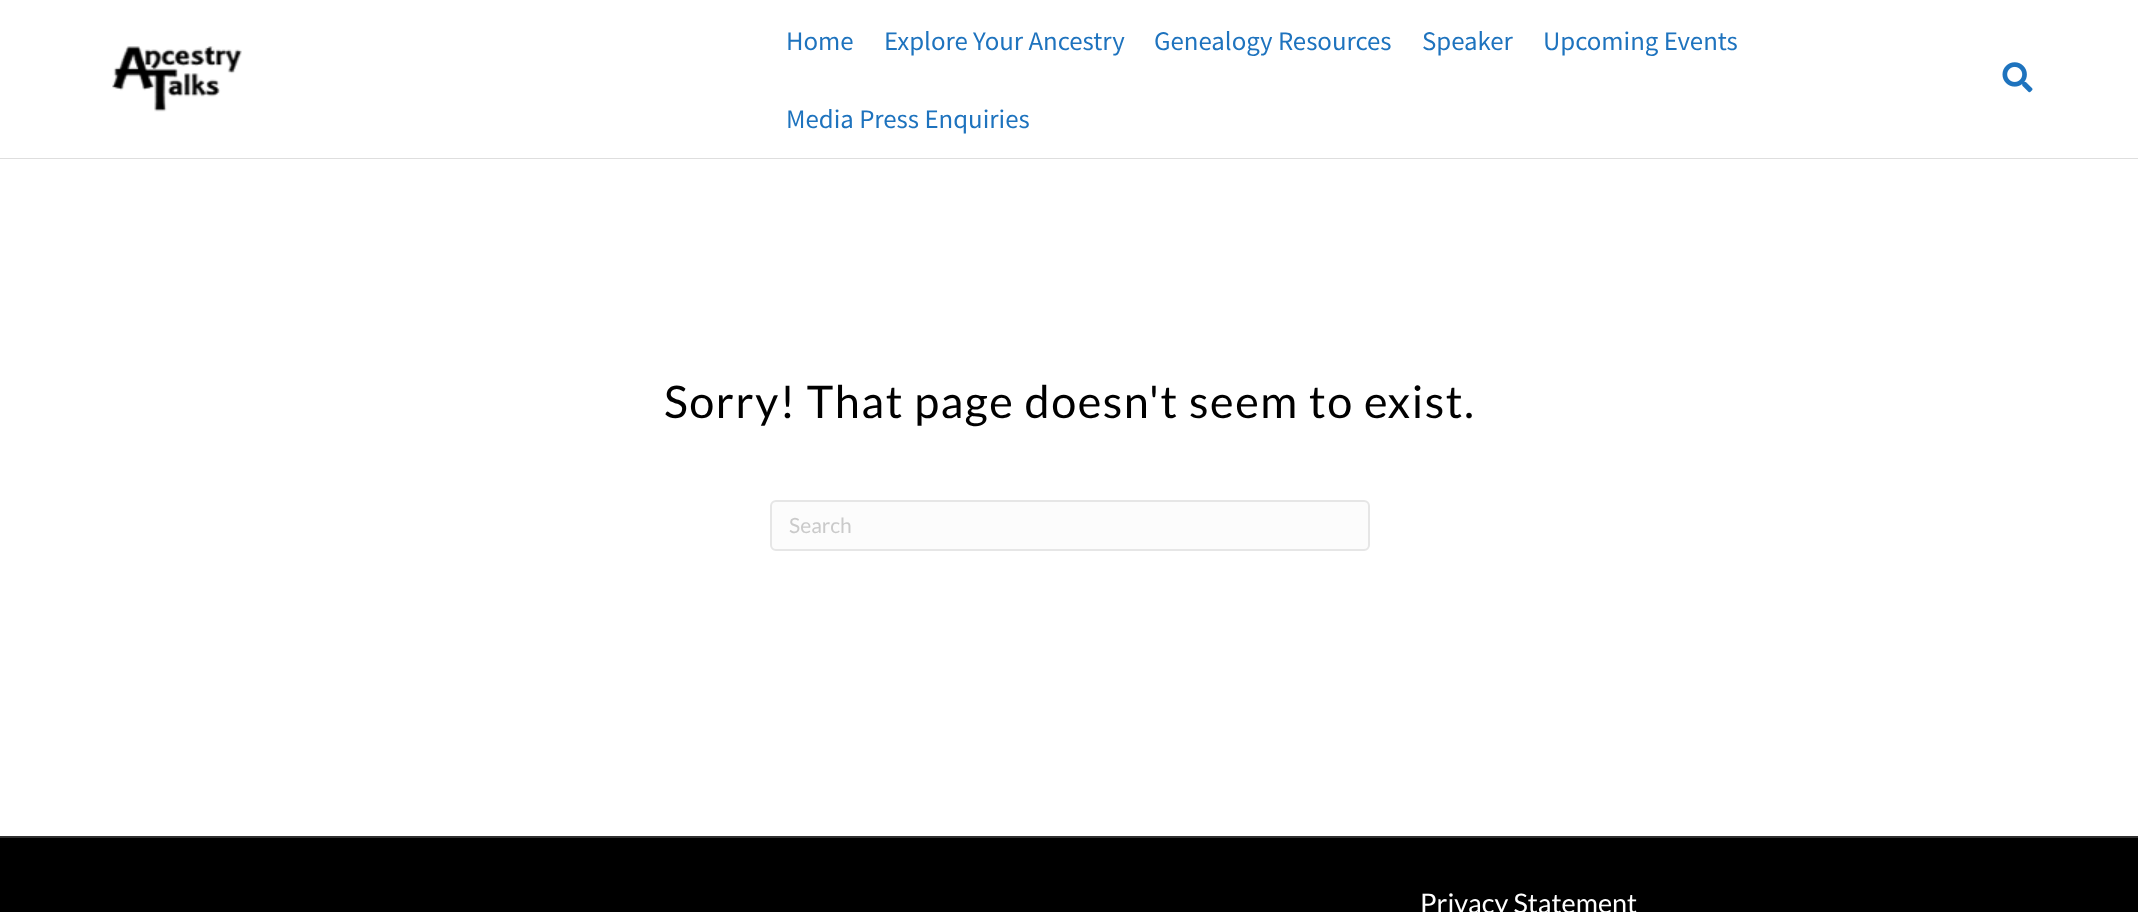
<svg xmlns="http://www.w3.org/2000/svg" width="2138" height="912" viewBox="0 0 2138 912">
  <style>
    .t1 { font: 100 24px Noto Sans KR; fill: #1e73be; }
    .t2 { font: 45px Lato; letter-spacing: 1.5px; fill: #000; }
    .t3 { font: 21px Lato; fill: #cacaca; }
    .t4 { font: 27px Lato; fill: #fff; }
  </style>
  <rect width="100%" height="100%" fill="#fff"/>
  <rect x="0" y="158" width="2138" height="1" fill="#dedede"/>
  <image x="112" y="46" width="130" height="66" href="images/1.png"/>
  <text x="786" y="50" class="t1">Home</text>
  <text x="884" y="50" class="t1">Explore Your Ancestry</text>
  <text x="1154" y="50" class="t1">Genealogy Resources</text>
  <text x="1422" y="50" class="t1">Speaker</text>
  <text x="1543" y="50" class="t1">Upcoming Events</text>
  <text x="786" y="128" class="t1">Media Press Enquiries</text>
  <image x="2002" y="62" width="31" height="31" href="images/2.png"/>
  <text x="664" y="418" class="t2">Sorry! That page doesn't seem to exist.</text>
  <rect x="771" y="501" width="598" height="49" rx="5" fill="#fcfcfc" stroke="#e6e6e6" stroke-width="2"/>
  <text x="789" y="533" class="t3">Search</text>
  <rect x="0" y="838" width="2138" height="74" fill="#000"/>
  <rect x="0" y="836" width="2138" height="2" fill="#303030"/>
  <text x="1420" y="913" class="t4">Privacy Statement</text>
</svg>
